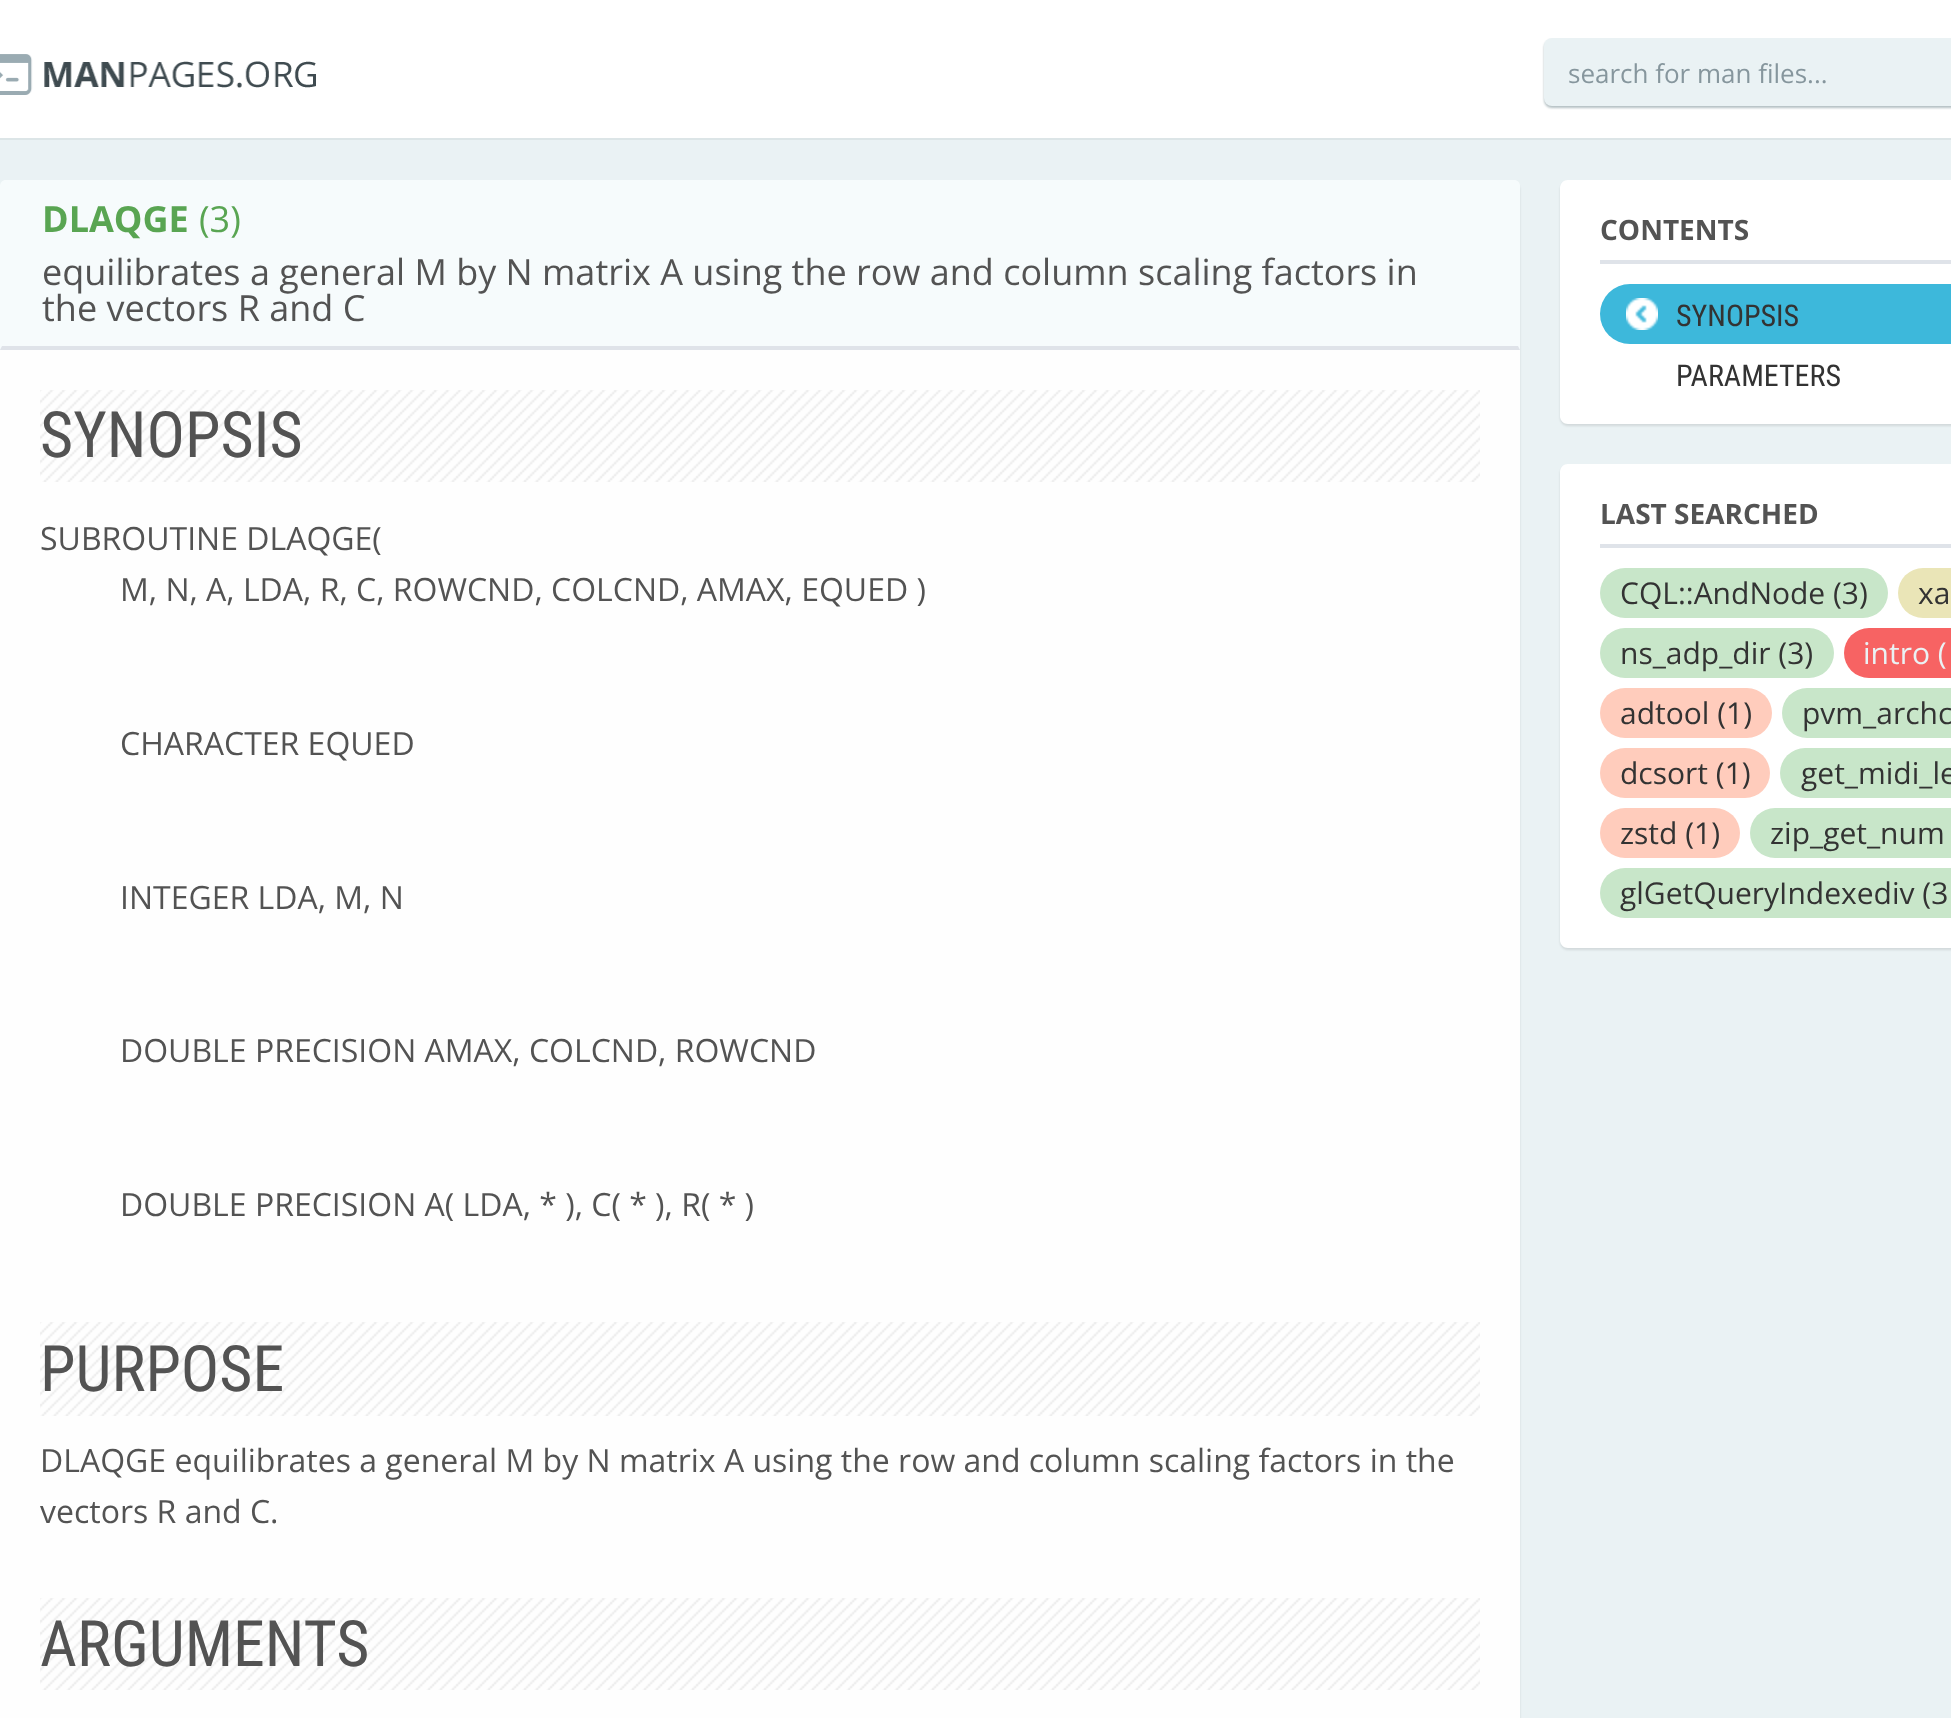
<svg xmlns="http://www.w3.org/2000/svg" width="1951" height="1718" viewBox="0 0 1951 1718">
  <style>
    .t1 { font: 26px Open Sans; fill: #86969d; }
    .t2 { font: bold 36px Open Sans; fill: #59a552; }
    .t3 { font: 36px Open Sans; fill: #59a552; }
    .t4 { font: 36px Open Sans; fill: #535353; }
    .t5 { font: 64px Roboto Condensed; fill: #535353; }
    .t6 { font: 32px Open Sans; fill: #535353; }
    .t7 { font: bold 28px Open Sans; fill: #535353; }
    .t8 { font: 30px Roboto Condensed; fill: #333; }
    .t9 { font: 30px Open Sans; fill: #333; }
    .t10 { font: 30px Open Sans; fill: #eaf2f4; }
  </style>
  <rect width="100%" height="100%" fill="#eaf2f4"/>
  <rect x="0" y="0" width="1951" height="138" fill="#fff"/>
  <rect x="0" y="138" width="1951" height="2" fill="#dce5e7"/>
  <image x="0" y="54" width="316" height="41" href="images/1.png"/>
  <rect x="1544" y="40" width="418" height="68" rx="8" fill="#062f374d" filter="blur(1px)"/>
  <rect x="1544" y="38" width="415" height="68" rx="8" fill="#eaf2f4"/>
  <text x="1568" y="83" class="t1">search for man files...</text>
  <rect x="0" y="182" width="1520" height="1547" rx="8" fill="#0000001a" filter="blur(1px)"/>
  <path d="M8 180H1512C1516.5 180 1520 183.5 1520 188V1718H0V188C0 183.5 3.5 180 8 180Z" fill="#fefefe"/>
  <path d="M6 180H1514C1517.5 180 1520 182.5 1520 186V350H0V186C0 182.5 2.5 180 6 180Z" fill="#f6fbfc"/>
  <path d="M1520 350L1518 346H2L0 350Z" fill="#dfe3e9"/>
  <text x="42" y="232" class="t2">DLAQGE</text>
  <text x="199" y="232" class="t3">(3)</text>
  <text x="42" y="285" class="t4">equilibrates a general M by N matrix A using the row and column scaling factors in</text>
  <text x="42" y="321" class="t4">the vectors R and C</text>
  <image x="40" y="390" width="1440" height="92" href="images/2.png"/>
  <text x="40" y="457" class="t5">SYNOPSIS</text>
  <text x="40" y="550" class="t6">SUBROUTINE DLAQGE(</text>
  <text x="120" y="601" class="t6">M, N, A, LDA, R, C, ROWCND, COLCND, AMAX, EQUED )</text>
  <text x="120" y="755" class="t6">CHARACTER EQUED</text>
  <text x="120" y="909" class="t6">INTEGER LDA, M, N</text>
  <text x="120" y="1062" class="t6">DOUBLE PRECISION AMAX, COLCND, ROWCND</text>
  <text x="120" y="1216" class="t6">DOUBLE PRECISION A( LDA, * ), C( * ), R( * )</text>
  <image x="40" y="1322" width="1440" height="94" href="images/3.png"/>
  <text x="40" y="1391" class="t5">PURPOSE</text>
  <text x="40" y="1472" class="t6">DLAQGE equilibrates a general M by N matrix A using the row and column scaling factors in the</text>
  <text x="40" y="1523" class="t6">vectors R and C.</text>
  <image x="40" y="1598" width="1440" height="92" href="images/2.png"/>
  <text x="40" y="1666" class="t5">ARGUMENTS</text>
  <rect x="1560" y="182" width="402" height="244" rx="8" fill="#0000001a" filter="blur(1px)"/>
  <path d="M1568 180H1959V424H1568C1563.5 424 1560 420.5 1560 416V188C1560 183.5 1563.5 180 1568 180Z" fill="#fff"/>
  <rect x="1600" y="260" width="351" height="4" fill="#dfe3e9"/>
  <text x="1600" y="240" class="t7">CONTENTS</text>
  <rect x="1600" y="284" width="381" height="60" rx="30" fill="#3db8db"/>
  <image x="1626" y="298" width="32" height="32" href="images/4.png"/>
  <text x="1676" y="326" class="t8">SYNOPSIS</text>
  <text x="1676" y="386" class="t8">PARAMETERS</text>
  <rect x="1560" y="466" width="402" height="484" rx="8" fill="#0000001a" filter="blur(1px)"/>
  <path d="M1568 464H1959V948H1568C1563.5 948 1560 944.5 1560 940V472C1560 467.5 1563.5 464 1568 464Z" fill="#fff"/>
  <rect x="1600" y="544" width="351" height="4" fill="#dfe3e9"/>
  <text x="1600" y="524" class="t7">LAST SEARCHED</text>
  <rect x="1600" y="568" width="288" height="50" rx="25" fill="#c8e6c9"/>
  <text x="1620" y="604" class="t9">CQL::AndNode (3)</text>
  <rect x="1898" y="568" width="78" height="50" rx="25" fill="#eae5b7"/>
  <text x="1918" y="604" class="t9">xa</text>
  <rect x="1600" y="628" width="234" height="50" rx="25" fill="#c8e6c9"/>
  <text x="1620" y="664" class="t9">ns_adp_dir (3)</text>
  <rect x="1844" y="628" width="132" height="50" rx="25" fill="#f76363"/>
  <text x="1863" y="664" class="t10">intro (</text>
  <rect x="1600" y="688" width="172" height="50" rx="25" fill="#ffccbc"/>
  <text x="1620" y="724" class="t9">adtool (1)</text>
  <rect x="1782" y="688" width="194" height="50" rx="25" fill="#c8e6c9"/>
  <text x="1802" y="724" class="t9">pvm_archc</text>
  <rect x="1600" y="748" width="170" height="50" rx="25" fill="#ffccbc"/>
  <text x="1620" y="784" class="t9">dcsort (1)</text>
  <rect x="1780" y="748" width="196" height="50" rx="25" fill="#c8e6c9"/>
  <text x="1801" y="784" class="t9">get_midi_le</text>
  <rect x="1600" y="808" width="140" height="50" rx="25" fill="#ffccbc"/>
  <text x="1620" y="844" class="t9">zstd (1)</text>
  <rect x="1750" y="808" width="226" height="50" rx="25" fill="#c8e6c9"/>
  <text x="1770" y="844" class="t9">zip_get_num</text>
  <rect x="1600" y="868" width="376" height="50" rx="25" fill="#c8e6c9"/>
  <text x="1620" y="904" class="t9">glGetQueryIndexediv (3</text>
</svg>
